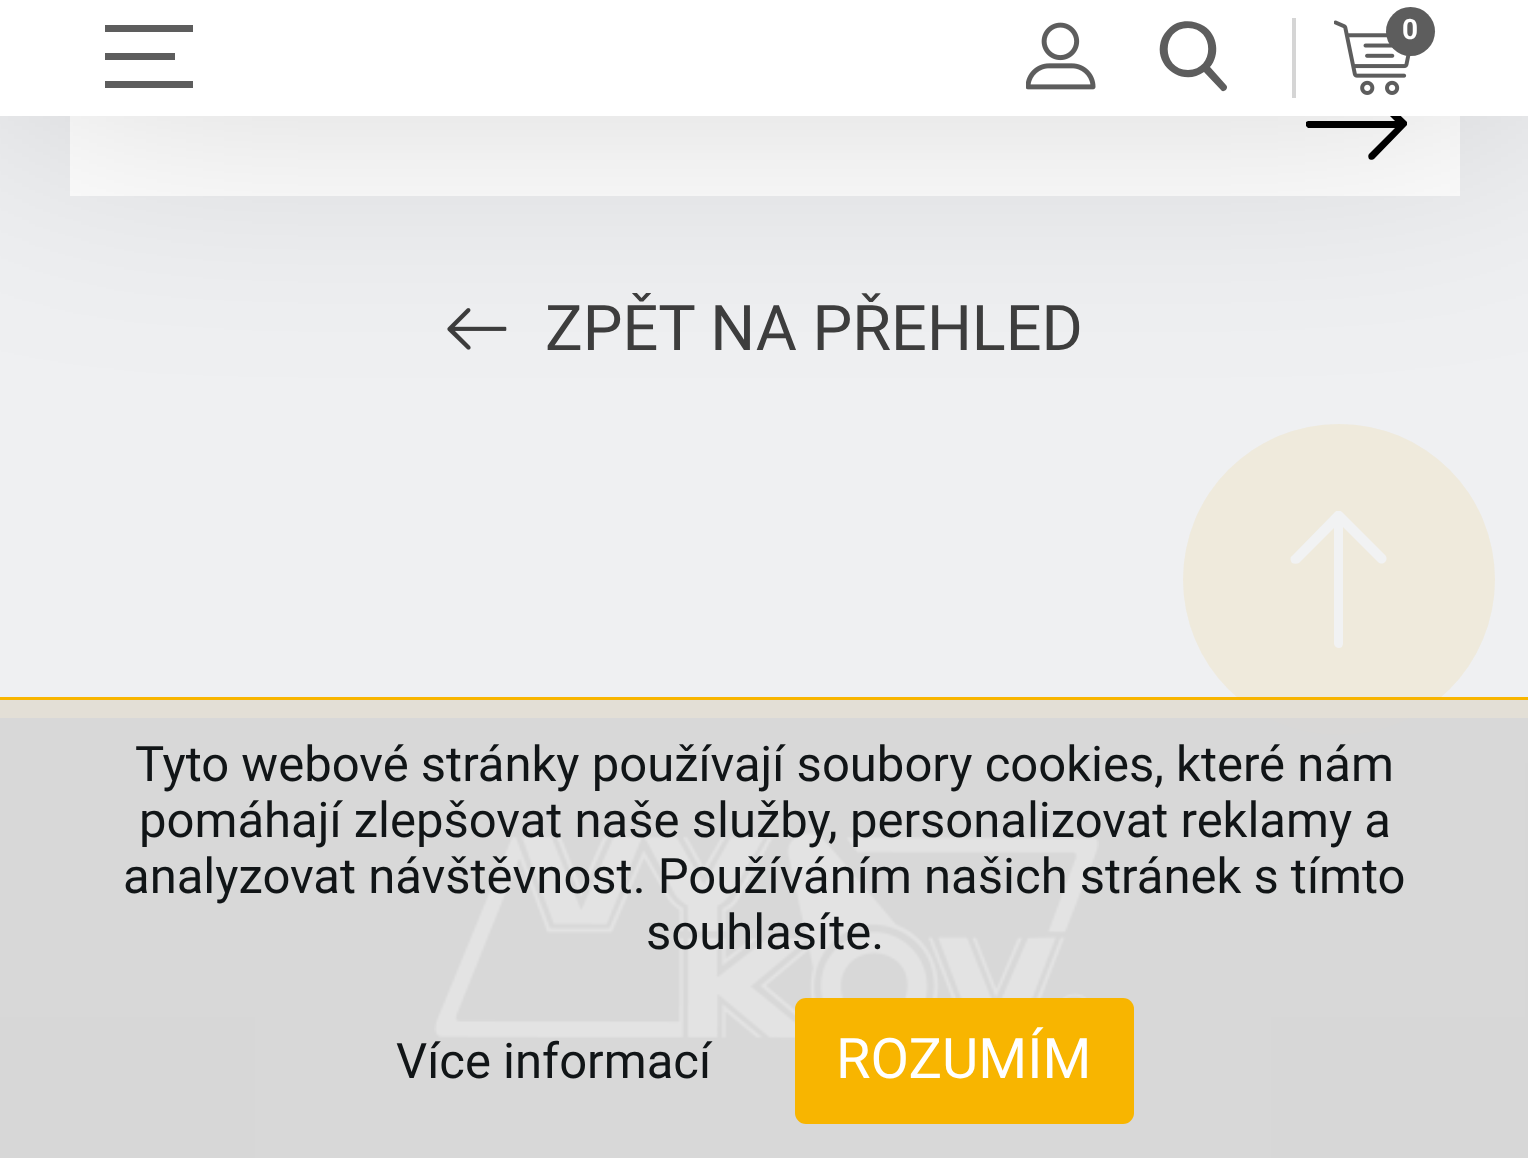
<svg xmlns="http://www.w3.org/2000/svg" width="1528" height="1158" viewBox="0 0 1528 1158">
  <style>
    .t1 { font: bold 28px Roboto; fill: #fff; }
    .t2 { font: 63px Roboto; fill: #3d3d3d; }
    .t3 { font: 49px Roboto; fill: #111517; }
    .t4 { font: 56px Roboto; fill: #fff; }
  </style>
  <defs>
    <clipPath id="clip1"><rect x="1271" y="511" width="136" height="137"/></clipPath>
  </defs>
  <rect width="100%" height="100%" fill="#eff0f2"/>
  <rect x="70" y="116" width="1390" height="80" fill="#fff"/>
  <path d="M1374 90L1407 122V125L1374 159C1373 160 1370 160 1369 159C1368 157 1368 155 1369 154L1395 128H1308L1306 126V122L1308 121H1395L1369 95C1367 93 1367 91 1369 90C1370 88 1373 88 1374 90Z" fill="#000"/>
  <image x="447" y="308" width="60" height="42" href="images/3.png"/>
  <rect x="0" y="718" width="1528" height="440" fill="#262626"/>
  <rect x="0" y="697" width="1528" height="21" fill="#f8b500"/>
  <rect x="1183" y="424" width="312" height="311" rx="155.5" fill="#f8b50017"/>
  <rect x="0" y="-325" width="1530" height="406" fill="#00000033" filter="blur(142px)"/>
  <rect x="0" y="0" width="1528" height="116" fill="#fff"/>
  <rect x="105" y="25" width="88" height="7" fill="#5d5d5d"/>
  <rect x="105" y="53" width="70" height="7" fill="#5d5d5d"/>
  <rect x="105" y="81" width="88" height="7" fill="#5d5d5d"/>
  <image x="1026" y="22" width="70" height="68" href="images/1.png"/>
  <path d="M1226 85L1210 67C1220 55 1218 35 1204 26C1196 21 1186 20 1177 23C1170 26 1165 32 1162 38C1151 65 1182 88 1204 72L1222 91C1225 92 1229 88 1226 85ZM1188 28C1215 28 1215 70 1188 70C1161 70 1161 28 1188 28Z" fill="#5d5d5d"/>
  <rect x="1292" y="18" width="4" height="80" fill="#d5d5d5"/>
  <image x="1334" y="20" width="77" height="75" href="images/2.png"/>
  <circle cx="1410.5" cy="31.5" r="24.5" fill="#5d5d5d"/>
  <text x="1402" y="39" class="t1">0</text>
  <text x="545" y="350" class="t2">ZPĚT NA PŘEHLED</text>
  <g clip-path="url(#clip1)">
    <path d="M1292 556C1290 557 1290 560 1292 563C1294 564 1297 564 1299 563L1334 528V644C1335 648 1339 649 1342 647L1343 644V527L1378 562C1380 564 1383 564 1385 562C1387 560 1387 557 1385 555L1342 512C1340 510 1337 510 1335 512Z" fill="#f1f2f3"/>
  </g>
  <image x="434" y="832" width="665" height="208" href="images/4.png"/>
  <rect x="0" y="700" width="1528" height="458" fill="#e1e1e1f2"/>
  <text x="135" y="781" class="t3">Tyto webové stránky používají soubory cookies, které nám</text>
  <text x="139" y="837" class="t3">pomáhají zlepšovat naše služby, personalizovat reklamy a</text>
  <text x="123" y="893" class="t3">analyzovat návštěvnost. Používáním našich stránek s tímto</text>
  <text x="646" y="949" class="t3">souhlasíte.</text>
  <text x="396" y="1078" class="t3">Více informací</text>
  <rect x="795" y="998" width="339" height="126" rx="11" fill="#f8b500"/>
  <text x="836" y="1078" class="t4">ROZUMÍM</text>
</svg>
